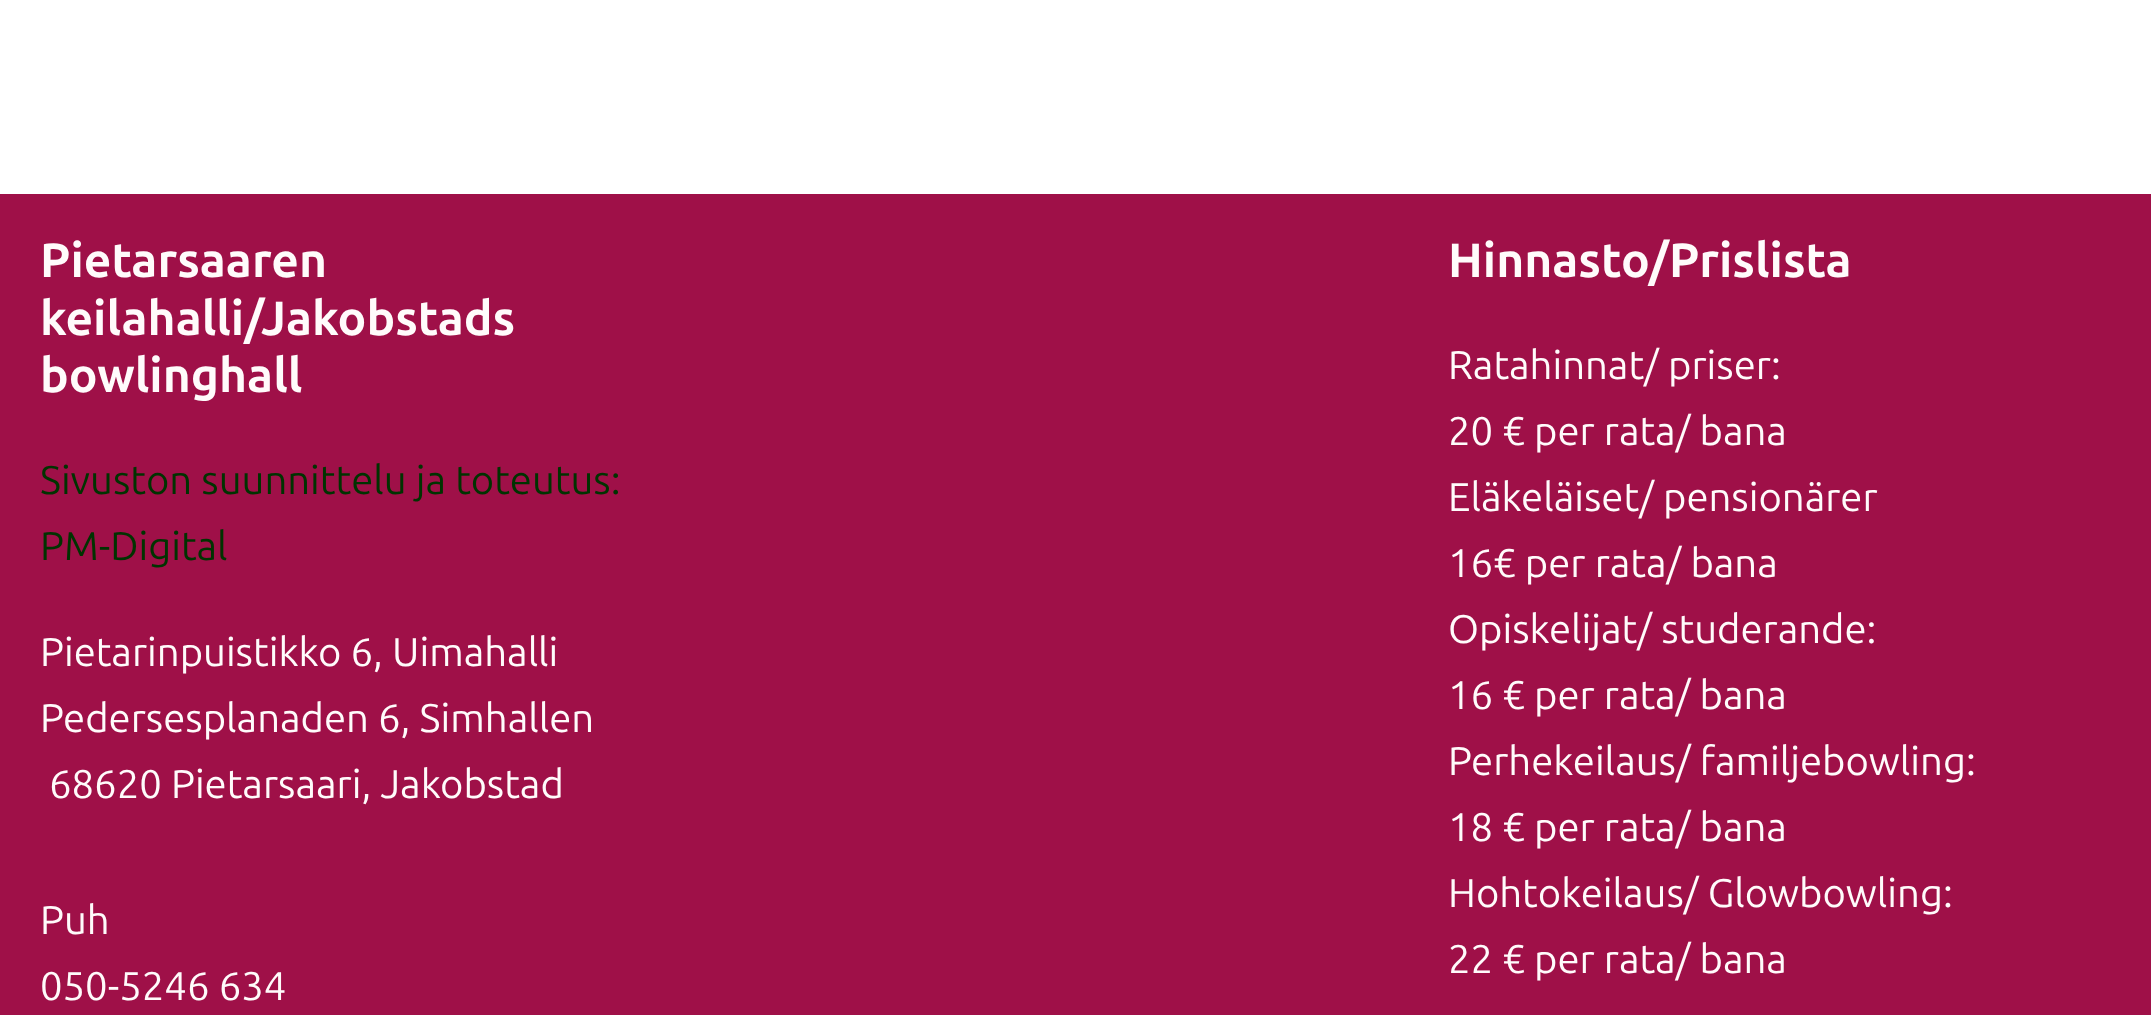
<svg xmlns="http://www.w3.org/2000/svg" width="2151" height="1015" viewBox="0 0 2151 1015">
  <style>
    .t1 { font: bold 48px Ubuntu; fill: #fffbfb; }
    .t2 { font: 40px Ubuntu; fill: #030; }
    .t3 { font: 40px Ubuntu; fill: #fffbfb; }
  </style>
  <rect width="100%" height="100%" fill="#fff"/>
  <rect x="0" y="194" width="2151" height="821" fill="#9f1048"/>
  <text x="40" y="277" class="t1">Pietarsaaren</text>
  <text x="40" y="335" class="t1">keilahalli/Jakobstads</text>
  <text x="40" y="392" class="t1">bowlinghall</text>
  <text x="40" y="494" class="t2">Sivuston suunnittelu ja toteutus:</text>
  <text x="40" y="560" class="t2">PM-Digital</text>
  <text x="40" y="666" class="t3">Pietarinpuistikko 6, Uimahalli</text>
  <text x="40" y="732" class="t3">Pedersesplanaden 6, Simhallen</text>
  <text x="49" y="798" class="t3">68620 Pietarsaari, Jakobstad</text>
  <text x="40" y="934" class="t3">Puh</text>
  <text x="40" y="1000" class="t3">050-5246 634</text>
  <text x="1448" y="277" class="t1">Hinnasto/Prislista</text>
  <text x="1448" y="379" class="t3">Ratahinnat/ priser:</text>
  <text x="1448" y="445" class="t3">20 € per rata/ bana</text>
  <text x="1448" y="511" class="t3">Eläkeläiset/ pensionärer</text>
  <text x="1448" y="577" class="t3">16€ per rata/ bana</text>
  <text x="1448" y="643" class="t3">Opiskelijat/ studerande:</text>
  <text x="1448" y="709" class="t3">16 € per rata/ bana</text>
  <text x="1448" y="775" class="t3">Perhekeilaus/ familjebowling:</text>
  <text x="1448" y="841" class="t3">18 € per rata/ bana</text>
  <text x="1448" y="907" class="t3">Hohtokeilaus/ Glowbowling:</text>
  <text x="1448" y="973" class="t3">22 € per rata/ bana</text>
</svg>
